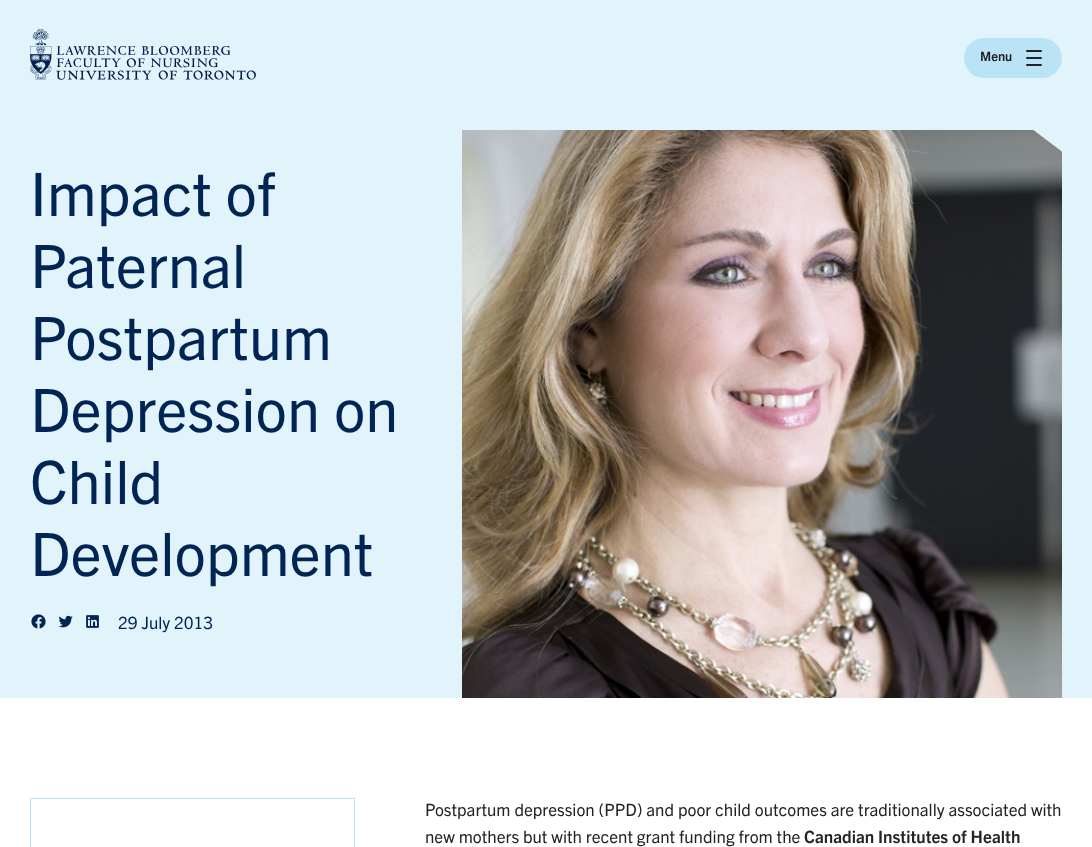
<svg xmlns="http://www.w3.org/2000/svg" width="1092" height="847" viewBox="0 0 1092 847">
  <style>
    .t1 { font: bold 13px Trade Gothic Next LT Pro; fill: #232323; }
    .t2 { font: 60px Trade Gothic Next LT Pro; fill: #002554; }
    .t3 { font: 17px Trade Gothic Next LT Pro; fill: #002554; }
    .t4 { font: 17px Trade Gothic Next LT Pro; fill: #232323; }
    .t5 { font: bold 17px Trade Gothic Next LT Pro; fill: #232323; }
  </style>
  <rect width="100%" height="100%" fill="#fff"/>
  <rect x="0" y="0" width="1092" height="698" fill="#e2f4fb"/>
  <image x="30" y="28" width="226" height="52" href="images/1.png"/>
  <rect x="964" y="38" width="98" height="40" rx="20" fill="#bae4f5"/>
  <text x="980" y="61" class="t1">Menu</text>
  <rect x="1026" y="50" width="16" height="2" rx="1" fill="#232323"/>
  <rect x="1026" y="57" width="16" height="2" rx="1" fill="#232323"/>
  <rect x="1026" y="64" width="16" height="2" rx="1" fill="#232323"/>
  <text x="30" y="216" class="t2">Impact of</text>
  <text x="30" y="288" class="t2">Paternal</text>
  <text x="30" y="360" class="t2">Postpartum</text>
  <text x="30" y="432" class="t2">Depression on</text>
  <text x="30" y="504" class="t2">Child</text>
  <text x="30" y="576" class="t2">Development</text>
  <image x="31" y="614" width="15" height="15" href="images/2.png"/>
  <image x="58" y="615" width="15" height="13" href="images/3.png"/>
  <image x="86" y="615" width="13" height="13" href="images/4.png"/>
  <text x="118" y="629" class="t3">29 July 2013</text>
  <image x="462" y="130" width="600" height="568" href="images/5.png"/>
  <rect x="30.5" y="798.5" width="324" height="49" fill="none" stroke="#bae4f5"/>
  <text x="425" y="816" class="t4">Postpartum depression (PPD) and poor child outcomes are traditionally associated with</text>
  <text x="425" y="843" class="t4">new mothers but with recent grant funding from the</text>
  <text x="804" y="843" class="t5">Canadian Institutes of Health</text>
</svg>
